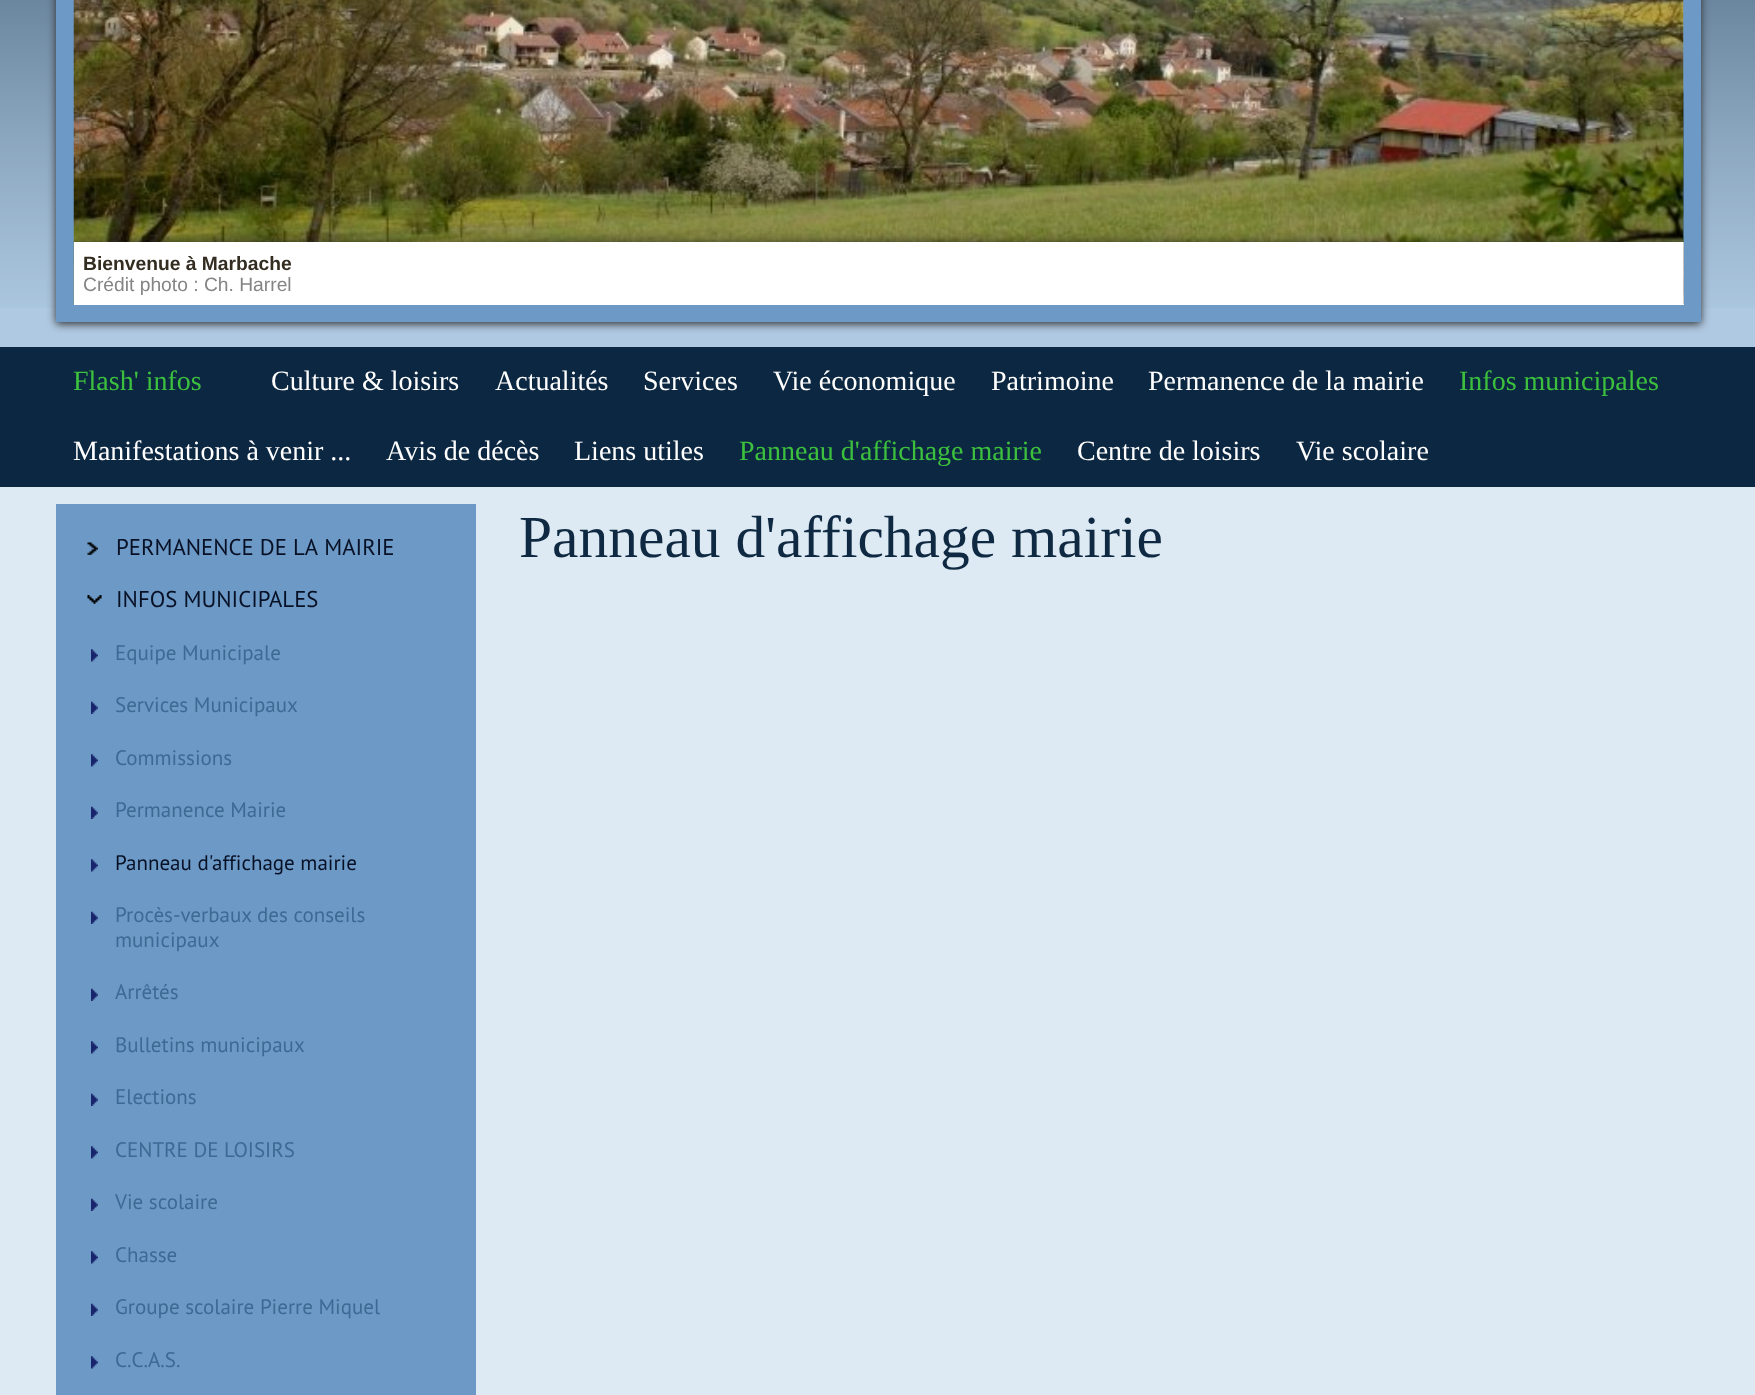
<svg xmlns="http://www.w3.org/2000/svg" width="1755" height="1395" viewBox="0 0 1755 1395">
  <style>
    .t1 { font: bold 19.25px Liberation Sans; fill: #332c21; }
    .t2 { font: 19.25px Liberation Sans; fill: #858484; }
    .t3 { font: 28px Liberation Serif; fill: #3cc03e; }
    .t4 { font: 28px Liberation Serif; fill: #fff; }
    .t5 { font: 22.75px PT Sans; fill: #071025; }
    .t6 { font: 21px PT Sans; fill: #3d6a95; }
    .t7 { font: 21px PT Sans; fill: #071025; }
    .t8 { font: 59.5px Liberation Serif; fill: #0f2942; }
  </style>
  <defs>
    <clipPath id="clip1"><rect x="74" y="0" width="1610" height="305"/></clipPath>
  </defs>
  <rect width="100%" height="100%" fill="#afc9e2"/>
  <image x="0" y="0" width="1755" height="308" href="images/1.png"/>
  <rect x="56" y="-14" width="1645" height="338" fill="#2f2f2f" filter="blur(4.5px)"/>
  <rect x="56" y="0" width="1645" height="322" fill="#6c99c5"/>
  <image x="73" y="0" width="1611" height="305" href="images/2.png"/>
  <g clip-path="url(#clip1)">
    <rect x="75" y="245" width="1610" height="63" fill="#141414" filter="blur(7px)"/>
  </g>
  <rect x="74" y="242" width="1610" height="63" fill="#fff"/>
  <text x="83" y="270" class="t1">Bienvenue à Marbache</text>
  <text x="83" y="291" class="t2">Crédit photo : Ch. Harrel</text>
  <image x="1683" y="0" width="1" height="305" href="images/3.png"/>
  <rect x="0" y="347" width="1755" height="140" fill="#0c2741"/>
  <text x="73" y="390" class="t3">Flash' infos</text>
  <text x="271" y="390" class="t4">Culture &amp; loisirs</text>
  <text x="495" y="390" class="t4">Actualités</text>
  <text x="643" y="390" class="t4">Services</text>
  <text x="773" y="390" class="t4">Vie économique</text>
  <text x="991" y="390" class="t4">Patrimoine</text>
  <text x="1148" y="390" class="t4">Permanence de la mairie</text>
  <text x="1459" y="390" class="t3">Infos municipales</text>
  <text x="73" y="460" class="t4">Manifestations à venir ...</text>
  <text x="386" y="460" class="t4">Avis de décès</text>
  <text x="574" y="460" class="t4">Liens utiles</text>
  <text x="739" y="460" class="t3">Panneau d'affichage mairie</text>
  <text x="1077" y="460" class="t4">Centre de loisirs</text>
  <text x="1296" y="460" class="t4">Vie scolaire</text>
  <rect x="0" y="487" width="1755" height="908" fill="#ddeaf3"/>
  <rect x="56" y="504" width="420" height="891" fill="#6c99c5"/>
  <image x="87" y="542" width="11" height="13" href="images/4.png"/>
  <text x="116" y="555" class="t5">PERMANENCE DE LA MAIRIE</text>
  <image x="87" y="595" width="15" height="9" href="images/5.png"/>
  <text x="116" y="607" class="t5">INFOS MUNICIPALES</text>
  <image x="91" y="649" width="7" height="13" href="images/6.png"/>
  <text x="115" y="660" class="t6">Equipe Municipale</text>
  <image x="91" y="701" width="7" height="13" href="images/7.png"/>
  <text x="115" y="712" class="t6">Services Municipaux</text>
  <image x="91" y="754" width="7" height="13" href="images/6.png"/>
  <text x="115" y="765" class="t6">Commissions</text>
  <image x="91" y="806" width="7" height="13" href="images/7.png"/>
  <text x="115" y="817" class="t6">Permanence Mairie</text>
  <image x="91" y="859" width="7" height="13" href="images/6.png"/>
  <text x="115" y="870" class="t7">Panneau d'affichage mairie</text>
  <image x="91" y="911" width="7" height="13" href="images/7.png"/>
  <text x="115" y="922" class="t6">Procès-verbaux des conseils</text>
  <text x="115" y="947" class="t6">municipaux</text>
  <image x="91" y="988" width="7" height="13" href="images/7.png"/>
  <text x="115" y="999" class="t6">Arrêtés</text>
  <image x="91" y="1041" width="7" height="13" href="images/6.png"/>
  <text x="115" y="1052" class="t6">Bulletins municipaux</text>
  <image x="91" y="1093" width="7" height="13" href="images/7.png"/>
  <text x="115" y="1104" class="t6">Elections</text>
  <image x="91" y="1146" width="7" height="13" href="images/6.png"/>
  <text x="115" y="1157" class="t6">CENTRE DE LOISIRS</text>
  <image x="91" y="1198" width="7" height="13" href="images/7.png"/>
  <text x="115" y="1209" class="t6">Vie scolaire</text>
  <image x="91" y="1251" width="7" height="13" href="images/6.png"/>
  <text x="115" y="1262" class="t6">Chasse</text>
  <image x="91" y="1303" width="7" height="13" href="images/7.png"/>
  <text x="115" y="1314" class="t6">Groupe scolaire Pierre Miquel</text>
  <image x="91" y="1356" width="7" height="13" href="images/6.png"/>
  <text x="115" y="1367" class="t6">C.C.A.S.</text>
  <text x="519" y="557" class="t8">Panneau d'affichage mairie</text>
</svg>
